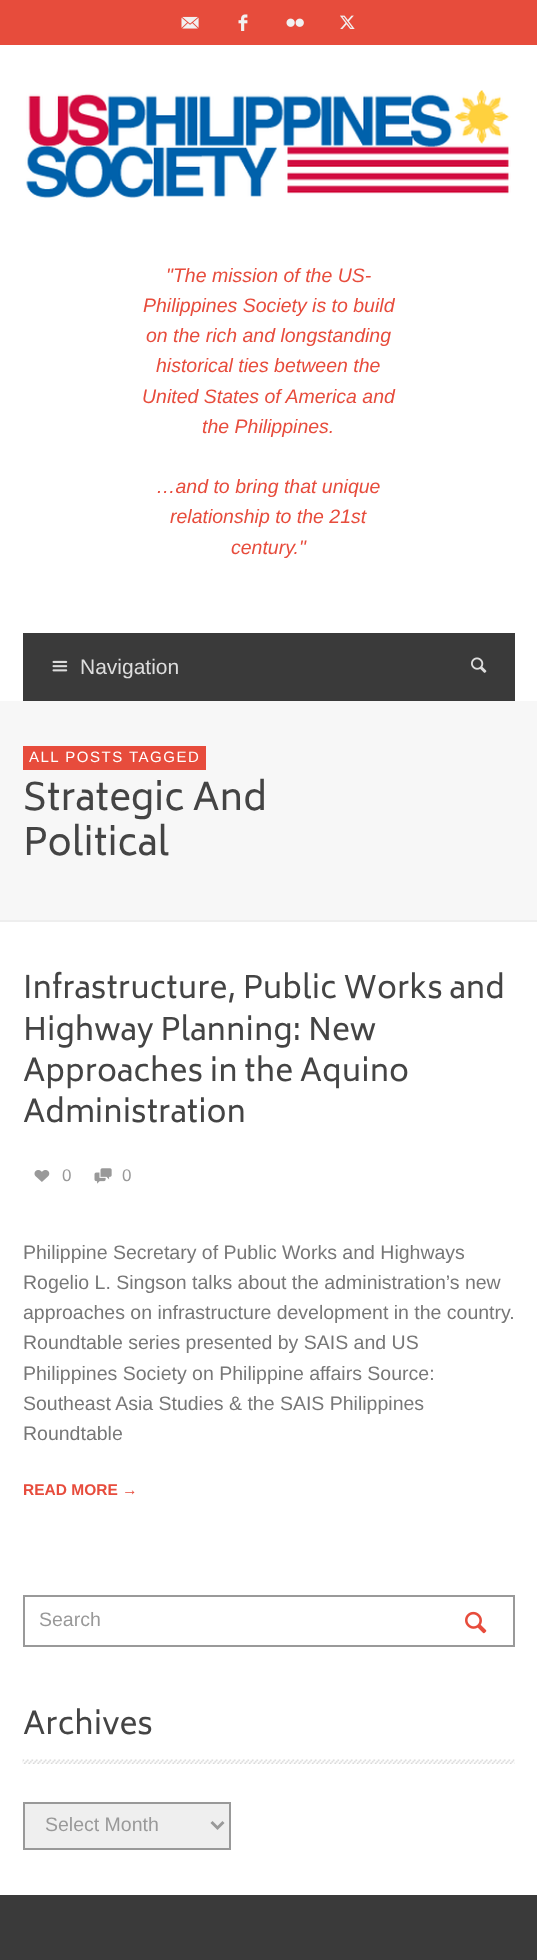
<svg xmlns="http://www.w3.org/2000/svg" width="537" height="1960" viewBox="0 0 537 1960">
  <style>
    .t1 { font: italic 19.5px Liberation Sans; fill: #e74c3c; }
    .t2 { font: 21px Liberation Sans; fill: #ddd; }
    .t3 { font: 15px Liberation Sans; letter-spacing: 1.5px; fill: #fff; }
    .t4 { font: 37px Biryani; fill: #444; }
    .t5 { font: 30.5px Biryani; fill: #444; }
    .t6 { font: 17px Liberation Sans; fill: #999; }
    .t7 { font: 19.5px Liberation Sans; fill: #777; }
    .t8 { font: bold 15.5px Liberation Sans; fill: #e74c3c; }
    .t9 { font: 19.5px Liberation Sans; fill: #999; }
  </style>
  <rect width="100%" height="100%" fill="#fff"/>
  <rect x="0" y="0" width="537" height="45" fill="#e74c3c"/>
  <image x="181" y="16" width="18" height="13" href="images/1.png"/>
  <image x="238" y="14" width="10" height="17" href="images/2.png"/>
  <image x="286" y="18" width="18" height="9" href="images/3.png"/>
  <image x="340" y="15" width="15" height="14" href="images/4.png"/>
  <image x="25" y="90" width="486" height="110" href="images/5.png"/>
  <text x="166" y="282" class="t1">"The mission of the US-</text>
  <text x="143" y="312" class="t1">Philippines Society is to build</text>
  <text x="146" y="342" class="t1">on the rich and longstanding</text>
  <text x="156" y="372" class="t1">historical ties between the</text>
  <text x="142" y="403" class="t1">United States of America and</text>
  <text x="202" y="433" class="t1">the Philippines.</text>
  <text x="156" y="493" class="t1">…and to bring that unique</text>
  <text x="170" y="523" class="t1">relationship to the 21st</text>
  <text x="231" y="554" class="t1">century."</text>
  <rect x="23" y="633" width="492" height="68" fill="#3a3a3a"/>
  <image x="52" y="660" width="16" height="12" href="images/6.png"/>
  <text x="80" y="674" class="t2">Navigation</text>
  <image x="471" y="657" width="16" height="16" href="images/7.png"/>
  <rect x="0" y="701" width="537" height="219" fill="#f7f7f7"/>
  <rect x="0" y="920" width="537" height="2" fill="#eee"/>
  <rect x="23" y="746" width="183" height="24" fill="#e74c3c"/>
  <text x="29" y="762" class="t3">ALL POSTS TAGGED</text>
  <text x="23" y="810" class="t4">Strategic And</text>
  <text x="23" y="855" class="t4">Political</text>
  <text x="23" y="998" class="t5">Infrastructure, Public Works and</text>
  <text x="23" y="1040" class="t5">Highway Planning: New</text>
  <text x="23" y="1081" class="t5">Approaches in the Aquino</text>
  <text x="23" y="1122" class="t5">Administration</text>
  <image x="34" y="1170" width="16" height="12" href="images/8.png"/>
  <text x="62" y="1181" class="t6">0</text>
  <image x="94" y="1168" width="18" height="16" href="images/9.png"/>
  <text x="122" y="1181" class="t6">0</text>
  <text x="23" y="1259" class="t7">Philippine Secretary of Public Works and Highways</text>
  <text x="23" y="1289" class="t7">Rogelio L. Singson talks about the administration’s new</text>
  <text x="23" y="1319" class="t7">approaches on infrastructure development in the country.</text>
  <text x="23" y="1349" class="t7">Roundtable series presented by SAIS and US</text>
  <text x="23" y="1380" class="t7">Philippines Society on Philippine affairs Source:</text>
  <text x="23" y="1410" class="t7">Southeast Asia Studies &amp; the SAIS Philippines</text>
  <text x="23" y="1440" class="t7">Roundtable</text>
  <text x="23" y="1495" class="t8">READ MORE →</text>
  <rect x="24" y="1596" width="490" height="50" fill="none" stroke="#999" stroke-width="2"/>
  <text x="39" y="1626" class="t9">Search</text>
  <image x="465" y="1611" width="22" height="23" href="images/10.png"/>
  <text x="23" y="1734" class="t5">Archives</text>
  <image x="22" y="1759" width="493" height="5" href="images/11.png"/>
  <rect x="24" y="1803" width="206" height="46" fill="#efefef" stroke="#999" stroke-width="2"/>
  <path d="M211.5 1822L217.5 1828L223.5 1822" fill="none" stroke="#999" stroke-width="3"/>
  <text x="45" y="1831" class="t9">Select Month</text>
  <rect x="0" y="1895" width="537" height="65" fill="#3a3a3a"/>
</svg>
